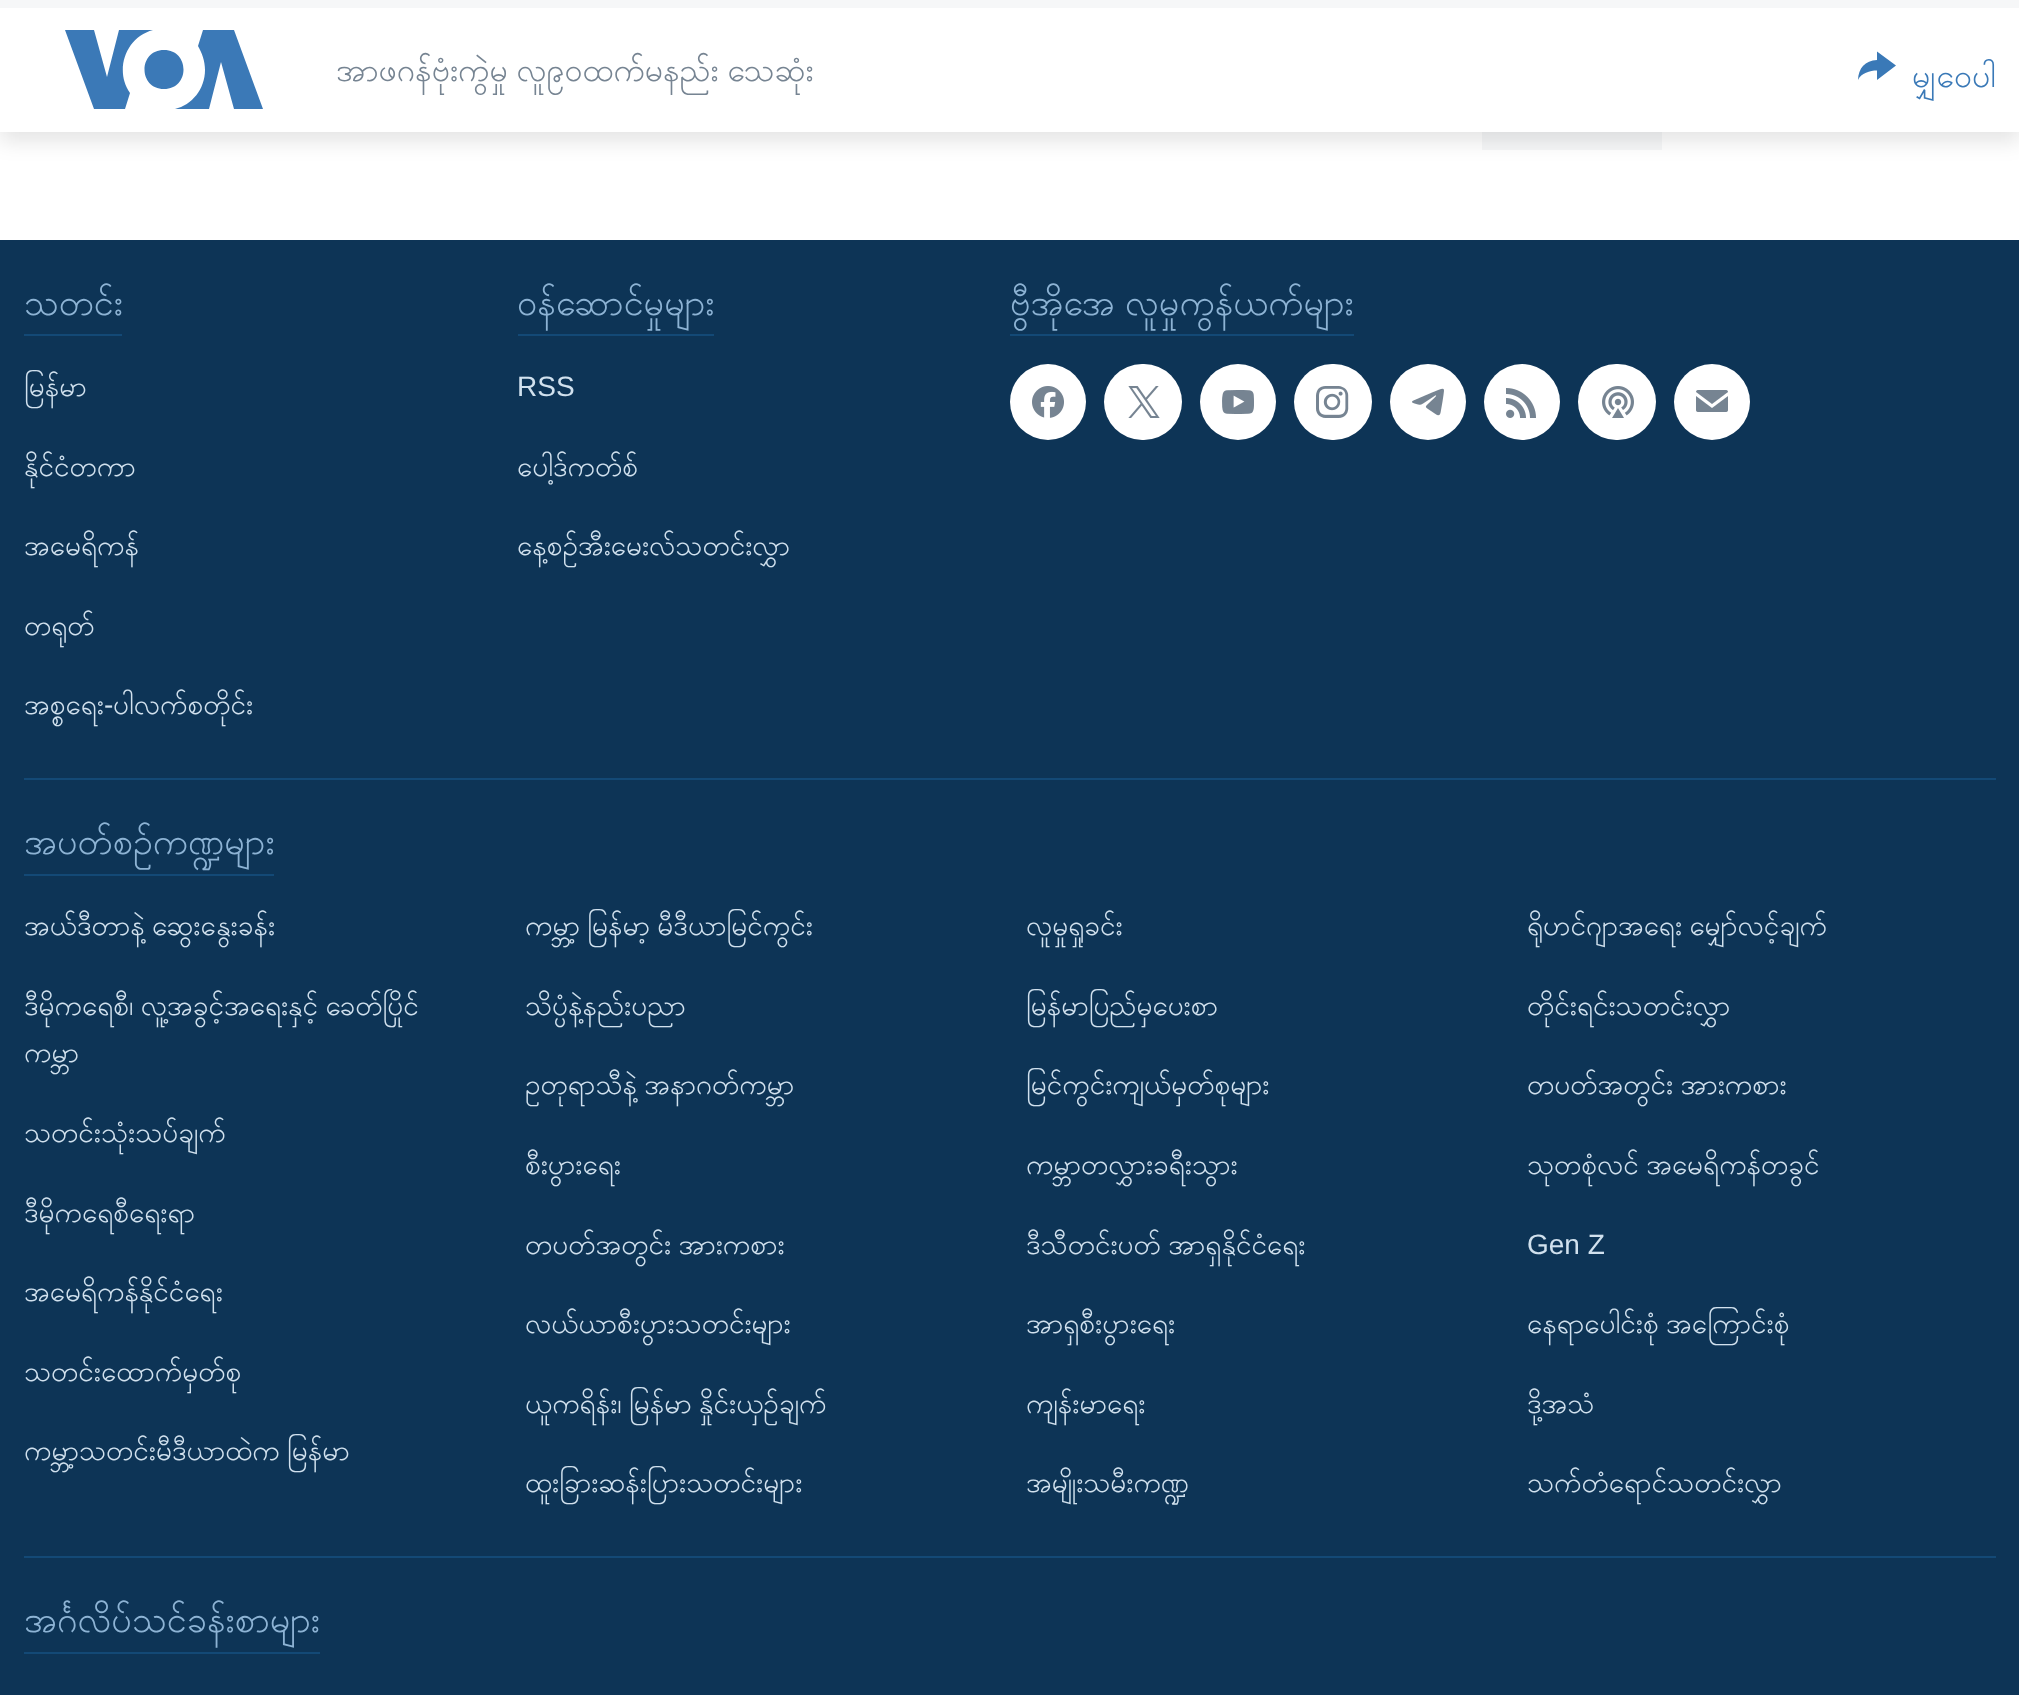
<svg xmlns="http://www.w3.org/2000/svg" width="2019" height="1695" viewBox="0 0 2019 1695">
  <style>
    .t1 { font: 32px Padauk; fill: #768492; }
    .t2 { font: 32px Padauk; fill: #3a79b7; }
    .t3 { font: 36px Padauk; fill: #8db3d4; }
    .t4 { font: 28px Padauk; fill: #d1e1ee; }
    .t5 { font: 28px Liberation Sans; fill: #d1e1ee; }
  </style>
  <defs>
    <clipPath id="clip1"><rect x="336" y="42" width="1488" height="56"/></clipPath>
  </defs>
  <rect width="100%" height="100%" fill="#fff"/>
  <rect x="1482" y="132" width="180" height="18" fill="#f6f7f8"/>
  <rect x="0" y="10" width="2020" height="132" fill="#0000001a" filter="blur(10px)"/>
  <rect x="0" y="8" width="2019" height="124" fill="#fff"/>
  <rect x="0" y="0" width="2019" height="8" fill="#f6f7f8"/>
  <path d="M130 93L125 109H94L65 30H94L107 77L119 30H153C126 37 114 70 130 93ZM164 50C138 50 138 89 164 89C190 89 190 50 164 50ZM205 70C205 89 192 105 175 109H209L221 62L234 109H263L234 30H203L198 46C202 53 205 61 205 70Z" fill="#3b79b7"/>
  <g clip-path="url(#clip1)">
    <text x="336" y="81" word-spacing="-3" class="t1">အာဖဂန်ဗုံးကွဲမှု လူ၉၀ထက်မနည်း သေဆုံး</text>
  </g>
  <path d="M1858 80C1858.5 68 1865 60.5 1877 60V51.5L1896 65.5L1877 80V70.5C1870 70.5 1861 73 1858 80Z" fill="#3a79b7"/>
  <text x="1912" y="87" class="t2">မျှဝေပါ</text>
  <rect x="0" y="240" width="2019" height="1455" fill="#0d3456"/>
  <rect x="24" y="334" width="98" height="2" fill="#134976"/>
  <text x="24" y="315" class="t3">သတင်း</text>
  <text x="24" y="396" class="t4">မြန်မာ</text>
  <text x="24" y="476" class="t4">နိုင်ငံတကာ</text>
  <text x="24" y="555" class="t4">အမေရိကန်</text>
  <text x="24" y="635" class="t4">တရုတ်</text>
  <text x="24" y="714" class="t4">အစ္စရေး</text>
  <text x="104" y="714" class="t5">-</text>
  <text x="113" y="714" class="t4">ပါလက်စတိုင်း</text>
  <rect x="518" y="334" width="196" height="2" fill="#134976"/>
  <text x="517" y="315" class="t3">၀န်ဆောင်မှုများ</text>
  <text x="517" y="396" class="t5">RSS</text>
  <text x="517" y="476" class="t4">ပေါ့ဒ်ကတ်စ်</text>
  <text x="517" y="555" class="t4">နေ့စဉ်အီးမေးလ်သတင်းလွှာ</text>
  <rect x="1010" y="334" width="344" height="2" fill="#134976"/>
  <text x="1010" y="315" word-spacing="-3" class="t3">ဗွီအိုအေ လူမှုကွန်ယက်များ</text>
  <circle cx="1048" cy="402" r="38" fill="#fff"/>
  <image x="1032" y="386" width="32" height="32" href="images/1.png"/>
  <rect x="1104" y="364" width="78" height="76" rx="38" fill="#fff"/>
  <image x="1128" y="386" width="32" height="32" href="images/2.png"/>
  <circle cx="1238" cy="402" r="38" fill="#fff"/>
  <image x="1222" y="390" width="32" height="24" href="images/3.png"/>
  <rect x="1294" y="364" width="78" height="76" rx="38" fill="#fff"/>
  <image x="1316" y="386" width="33" height="32" href="images/4.png"/>
  <circle cx="1428" cy="402" r="38" fill="#fff"/>
  <image x="1412" y="388" width="32" height="28" href="images/5.png"/>
  <circle cx="1522" cy="402" r="38" fill="#fff"/>
  <image x="1506" y="388" width="30" height="30" href="images/6.png"/>
  <rect x="1578" y="364" width="78" height="76" rx="38" fill="#fff"/>
  <image x="1602" y="386" width="32" height="32" href="images/7.png"/>
  <circle cx="1712" cy="402" r="38" fill="#fff"/>
  <image x="1696" y="390" width="32" height="22" href="images/8.png"/>
  <rect x="24" y="778" width="1972" height="2" fill="#134976"/>
  <rect x="24" y="874" width="250" height="2" fill="#134976"/>
  <text x="24" y="854" class="t3">အပတ်စဉ်ကဏ္ဍများ</text>
  <text x="24" y="935" word-spacing="-3" class="t4">အယ်ဒီတာနဲ့ ဆွေးနွေးခန်း</text>
  <text x="525" y="935" word-spacing="-3" class="t4">ကမ္ဘာ့ မြန်မာ့ မီဒီယာမြင်ကွင်း</text>
  <text x="1026" y="935" class="t4">လူမှုရှုခင်း</text>
  <text x="1527" y="935" word-spacing="-3" class="t4">ရိုဟင်ဂျာအရေး မျှော်လင့်ချက်</text>
  <text x="24" y="1015" word-spacing="-3" class="t4">ဒီမိုကရေစီ၊ လူ့အခွင့်အရေးနှင့် ခေတ်ပြိုင်</text>
  <text x="24" y="1062" class="t4">ကမ္ဘာ</text>
  <text x="525" y="1015" class="t4">သိပ္ပံနဲ့နည်းပညာ</text>
  <text x="1026" y="1015" class="t4">မြန်မာပြည်မှပေးစာ</text>
  <text x="1527" y="1015" class="t4">တိုင်းရင်းသတင်းလွှာ</text>
  <text x="525" y="1094" word-spacing="-3" class="t4">ဥတုရာသီနဲ့ အနာဂတ်ကမ္ဘာ</text>
  <text x="1026" y="1094" class="t4">မြင်ကွင်းကျယ်မှတ်စုများ</text>
  <text x="1527" y="1094" word-spacing="-3" class="t4">တပတ်အတွင်း အားကစား</text>
  <text x="24" y="1142" class="t4">သတင်းသုံးသပ်ချက်</text>
  <text x="525" y="1174" class="t4">စီးပွားရေး</text>
  <text x="1026" y="1174" class="t4">ကမ္ဘာတလွှားခရီးသွား</text>
  <text x="1527" y="1174" word-spacing="-3" class="t4">သုတစုံလင် အမေရိကန်တခွင်</text>
  <text x="24" y="1222" class="t4">ဒီမိုကရေစီရေးရာ</text>
  <text x="525" y="1254" word-spacing="-3" class="t4">တပတ်အတွင်း အားကစား</text>
  <text x="1026" y="1254" word-spacing="-3" class="t4">ဒီသီတင်းပတ် အာရှနိုင်ငံရေး</text>
  <text x="1527" y="1254" class="t5">Gen Z</text>
  <text x="24" y="1301" class="t4">အမေရိကန်နိုင်ငံရေး</text>
  <text x="525" y="1333" class="t4">လယ်ယာစီးပွားသတင်းများ</text>
  <text x="1026" y="1333" class="t4">အာရှစီးပွားရေး</text>
  <text x="1527" y="1333" word-spacing="-3" class="t4">နေရာပေါင်းစုံ အကြောင်းစုံ</text>
  <text x="24" y="1381" class="t4">သတင်းထောက်မှတ်စု</text>
  <text x="525" y="1413" word-spacing="-3" class="t4">ယူကရိန်း၊ မြန်မာ နှိုင်းယှဉ်ချက်</text>
  <text x="1026" y="1413" class="t4">ကျန်းမာရေး</text>
  <text x="1527" y="1413" class="t4">ဒို့အသံ</text>
  <text x="24" y="1460" word-spacing="-3" class="t4">ကမ္ဘာ့သတင်းမီဒီယာထဲက မြန်မာ</text>
  <text x="525" y="1492" class="t4">ထူးခြားဆန်းပြားသတင်းများ</text>
  <text x="1026" y="1492" class="t4">အမျိုးသမီးကဏ္ဍ</text>
  <text x="1527" y="1492" class="t4">သက်တံရောင်သတင်းလွှာ</text>
  <rect x="24" y="1556" width="1972" height="2" fill="#134976"/>
  <rect x="24" y="1652" width="296" height="2" fill="#134976"/>
  <text x="24" y="1632" class="t3">အင်္ဂလိပ်သင်ခန်းစာများ</text>
</svg>
